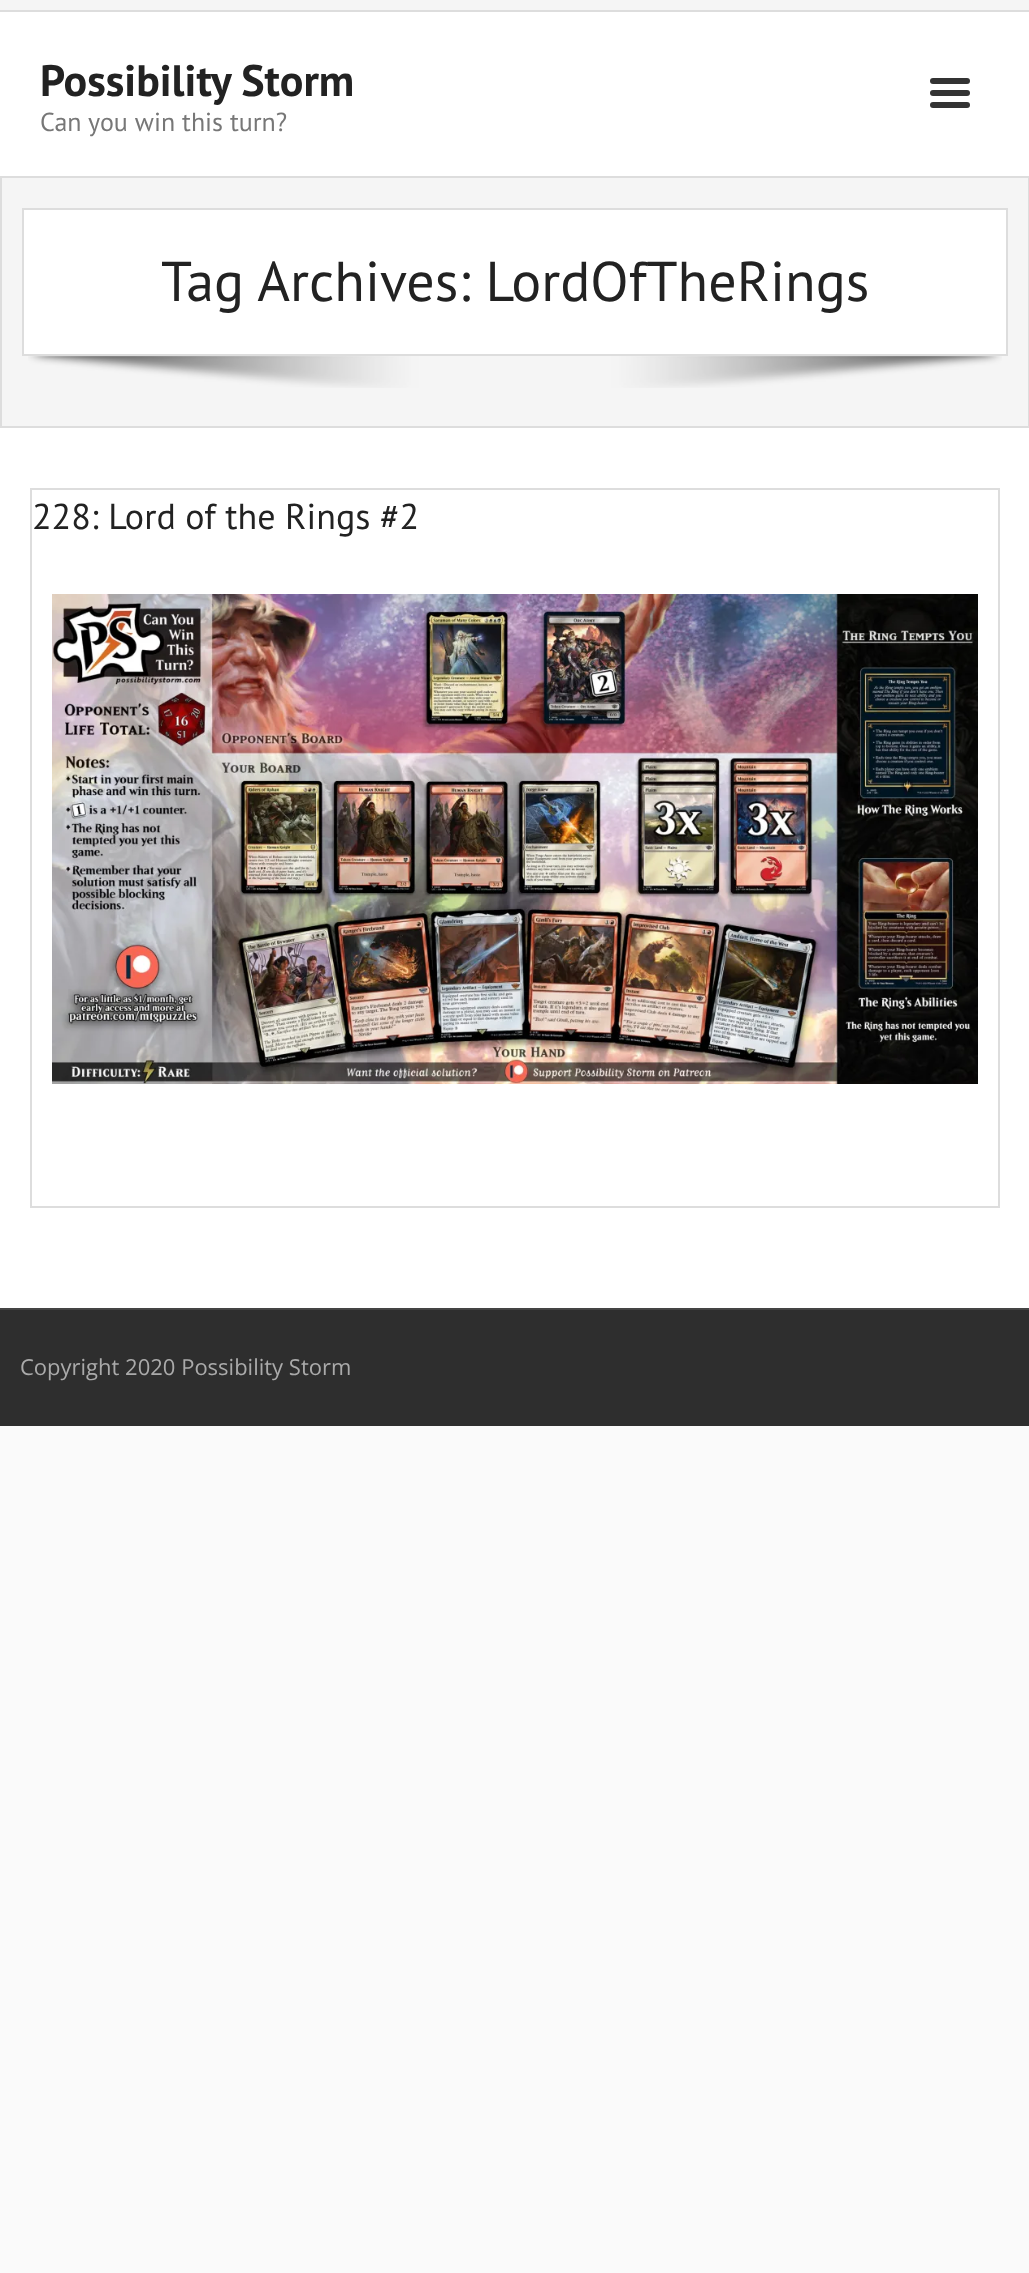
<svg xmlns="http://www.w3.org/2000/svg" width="1029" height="2273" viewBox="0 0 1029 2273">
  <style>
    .t1 { font: bold 44px PT Sans; fill: #222; }
    .t2 { font: 26px PT Sans; fill: #777; }
    .t3 { font: 56px PT Sans; fill: #222; }
    .t4 { font: 36px PT Sans; fill: #222; }
    .t5 { font: 22px Open Sans; fill: #aaa; }
  </style>
  <rect width="100%" height="100%" fill="#fafafa"/>
  <rect x="0" y="12" width="1029" height="1296" fill="#fff"/>
  <rect x="0" y="176" width="1029" height="2" fill="#ddd"/>
  <rect x="0" y="0" width="1029" height="10" fill="#f5f5f5"/>
  <rect x="0" y="10" width="1029" height="2" fill="#ddd"/>
  <text x="40" y="96" class="t1">Possibility Storm</text>
  <text x="40" y="131" class="t2">Can you win this turn?</text>
  <rect x="930" y="78" width="40" height="6" rx="3" fill="#333"/>
  <rect x="930" y="90" width="40" height="6" rx="3" fill="#333"/>
  <rect x="930" y="102" width="40" height="6" rx="3" fill="#333"/>
  <rect x="2" y="178" width="1026" height="248" fill="#f5f5f5"/>
  <rect x="1028" y="178" width="1" height="250" fill="#ddd"/>
  <rect x="0" y="426" width="1029" height="2" fill="#ddd"/>
  <rect x="0" y="178" width="2" height="250" fill="#ddd"/>
  <rect x="23" y="209" width="984" height="146" fill="#fff" stroke="#ddd" stroke-width="2"/>
  <text x="161" y="301" class="t3">Tag Archives: LordOfTheRings</text>
  <image x="28" y="356" width="974" height="32" href="images/1.png"/>
  <rect x="31" y="489" width="968" height="718" fill="none" stroke="#ddd" stroke-width="2"/>
  <text x="32" y="529" class="t4">228: Lord of the Rings #2</text>
  <image x="52" y="594" width="926" height="490" href="images/2.png"/>
  <rect x="0" y="1310" width="1029" height="116" fill="#2e2e2e"/>
  <rect x="0" y="1308" width="1029" height="2" fill="#444"/>
  <text x="20" y="1375" class="t5">Copyright 2020 Possibility Storm</text>
</svg>
